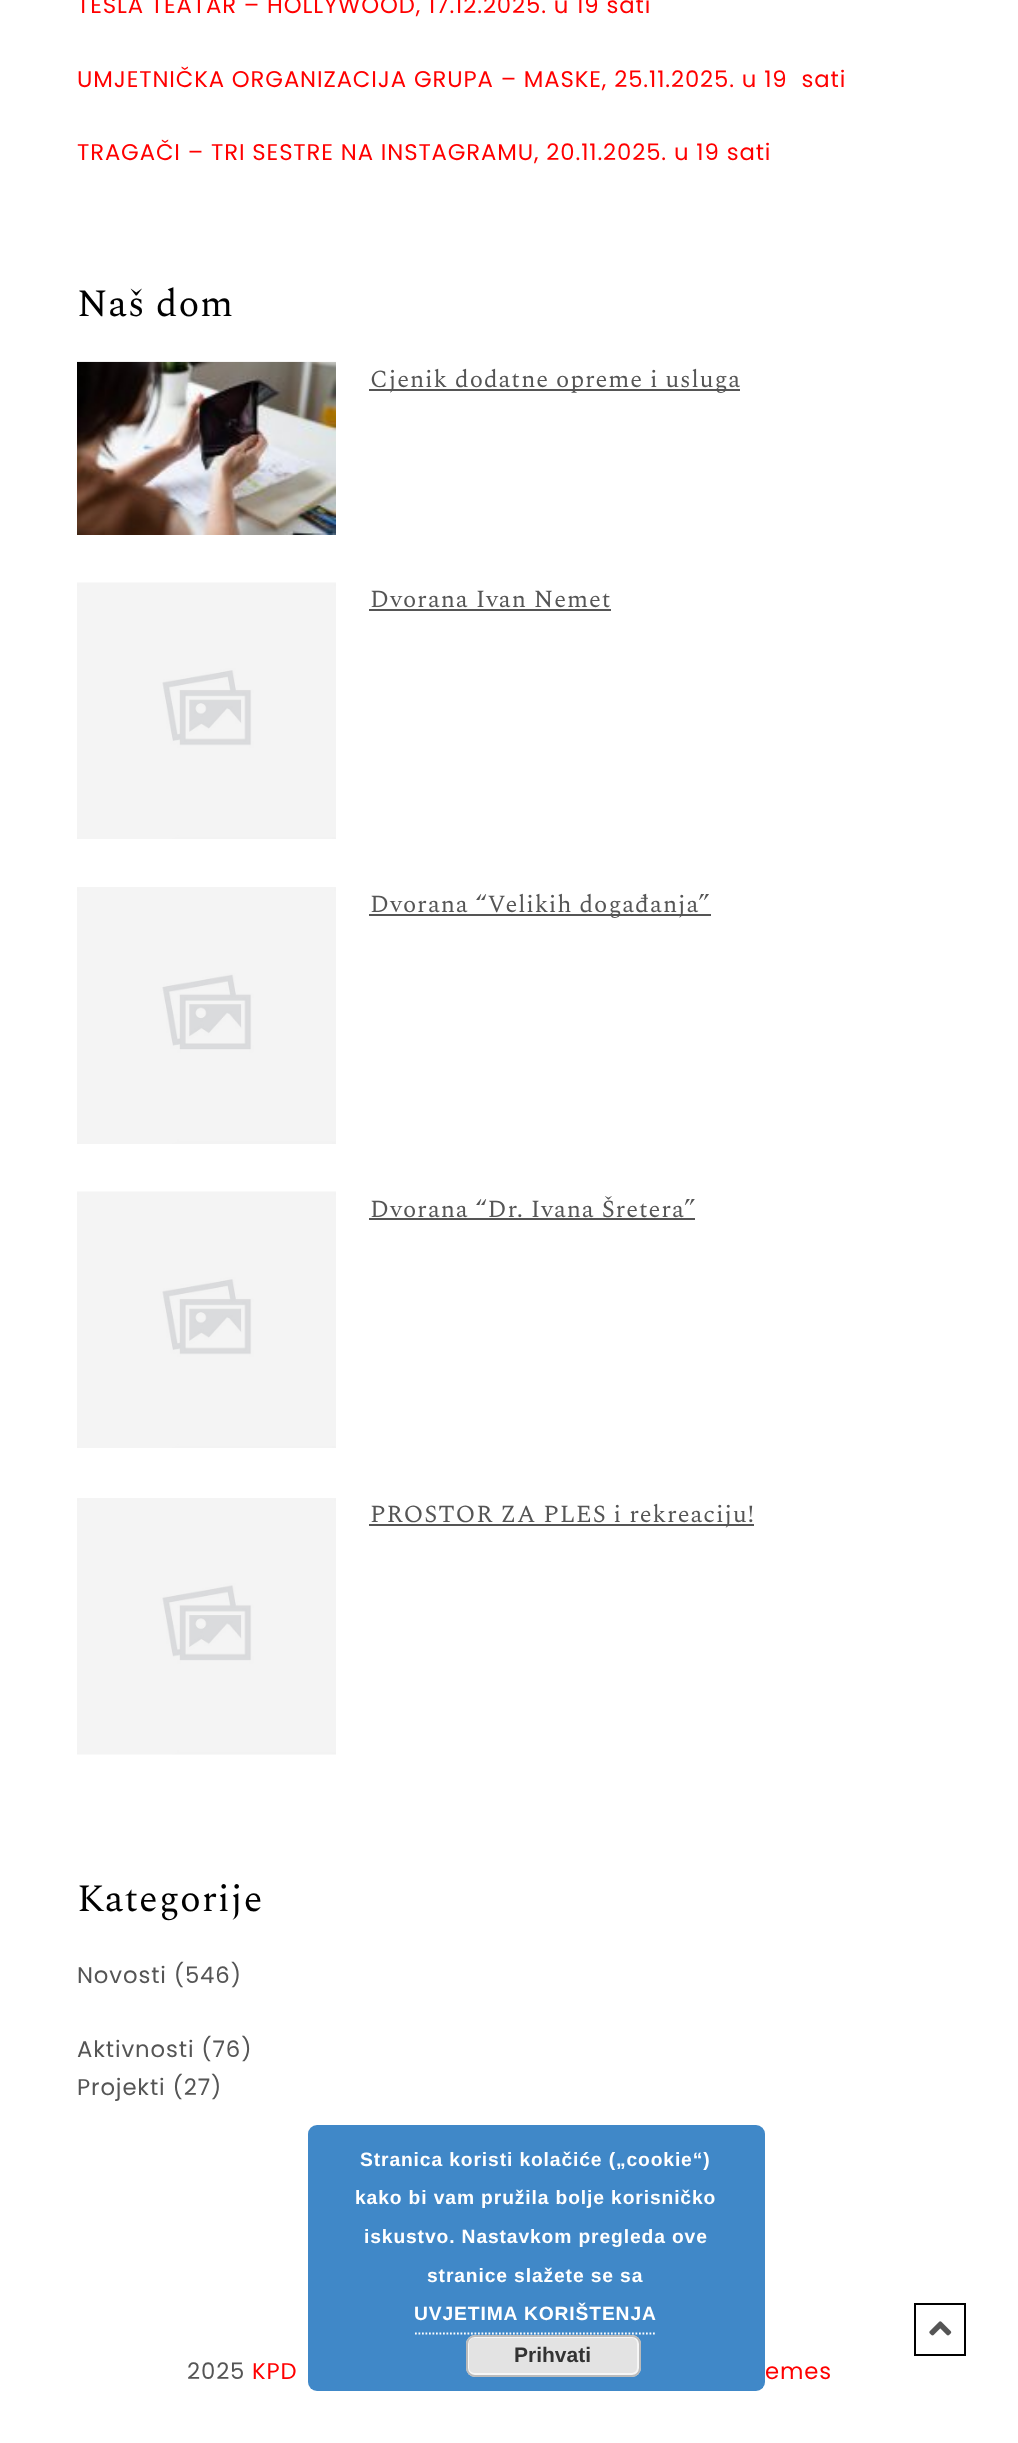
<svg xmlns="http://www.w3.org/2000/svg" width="1018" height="2443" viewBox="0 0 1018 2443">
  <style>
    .t1 { font: 22.75px Poppins; letter-spacing: 0.88px; fill: #f00; }
    .t2 { font: 38.5px Spectral; letter-spacing: 0.88px; fill: #000; }
    .t3 { font: 24.5px Spectral; letter-spacing: 0.88px; fill: #555; }
    .t4 { font: 22.75px Poppins; letter-spacing: 0.88px; fill: #555; }
    .t5 { font: bold 19.25px Liberation Sans; letter-spacing: 0.88px; fill: #fff; }
    .t6 { font: bold 21px Liberation Sans; fill: #333; }
  </style>
  <rect width="100%" height="100%" fill="#fff"/>
  <text x="77" y="13" class="t1">TESLA TEATAR – HOLLYWOOD, 17.12.2025. u 19 sati</text>
  <text x="77" y="87" class="t1" xml:space="preserve">UMJETNIČKA ORGANIZACIJA GRUPA – MASKE, 25.11.2025. u 19  sati</text>
  <text x="77" y="160" class="t1">TRAGAČI – TRI SESTRE NA INSTAGRAMU, 20.11.2025. u 19 sati</text>
  <text x="77" y="316" class="t2">Naš dom</text>
  <image x="77" y="361" width="259" height="174" href="images/1.png"/>
  <rect x="369" y="389" width="371" height="2" fill="#555"/>
  <text x="370" y="387" class="t3">Cjenik dodatne opreme i usluga</text>
  <image x="77" y="582" width="259" height="257" href="images/2.png"/>
  <text x="370" y="607" class="t3">Dvorana Ivan Nemet</text>
  <rect x="369" y="609" width="242" height="2" fill="#555"/>
  <image x="77" y="887" width="259" height="257" href="images/3.png"/>
  <rect x="369" y="914" width="342" height="2" fill="#555"/>
  <text x="370" y="912" class="t3">Dvorana “Velikih događanja”</text>
  <image x="77" y="1191" width="259" height="257" href="images/2.png"/>
  <text x="370" y="1217" class="t3">Dvorana “Dr. Ivana Šretera”</text>
  <rect x="369" y="1218" width="326" height="2" fill="#555"/>
  <image x="77" y="1498" width="259" height="257" href="images/4.png"/>
  <rect x="369" y="1524" width="385" height="2" fill="#555"/>
  <text x="370" y="1522" class="t3">PROSTOR ZA PLES i rekreaciju!</text>
  <text x="77" y="1911" class="t2">Kategorije</text>
  <text x="77" y="1983" class="t4">Novosti (546)</text>
  <text x="77" y="2057" class="t4">Aktivnosti (76)</text>
  <text x="77" y="2095" class="t4">Projekti (27)</text>
  <rect x="308" y="2125" width="457" height="266" rx="9" fill="#1e73bed9"/>
  <text x="360" y="2166" class="t5">Stranica koristi kolačiće („cookie“)</text>
  <text x="355" y="2204" class="t5">kako bi vam pružila bolje korisničko</text>
  <text x="364" y="2243" class="t5">iskustvo. Nastavkom pregleda ove</text>
  <text x="427" y="2282" class="t5">stranice slažete se sa</text>
  <path d="M415 2333.5H656" fill="none" stroke="#fff" stroke-width="1.8" stroke-dasharray="1.75 1.75"/>
  <text x="414" y="2320" class="t5">UVJETIMA KORIŠTENJA</text>
  <rect x="466" y="2335" width="175" height="42" rx="9" fill="#e3e3e3"/>
  <rect x="468" y="2337" width="170" height="37" rx="6" fill="none" stroke="#f6f6f6" stroke-width="2"/>
  <rect x="467" y="2336" width="173" height="40" rx="8" fill="none" stroke="#bbb" stroke-width="2"/>
  <text x="514" y="2362" class="t6">Prihvati</text>
  <rect x="915" y="2304" width="50" height="51" fill="none" stroke="#000" stroke-width="2"/>
  <image x="929" y="2321" width="23" height="15" href="images/5.png"/>
  <text x="187" y="2379" class="t4">2025</text>
  <text x="252" y="2379" class="t1">KPD</text>
  <text x="765" y="2379" class="t1">emes</text>
</svg>
